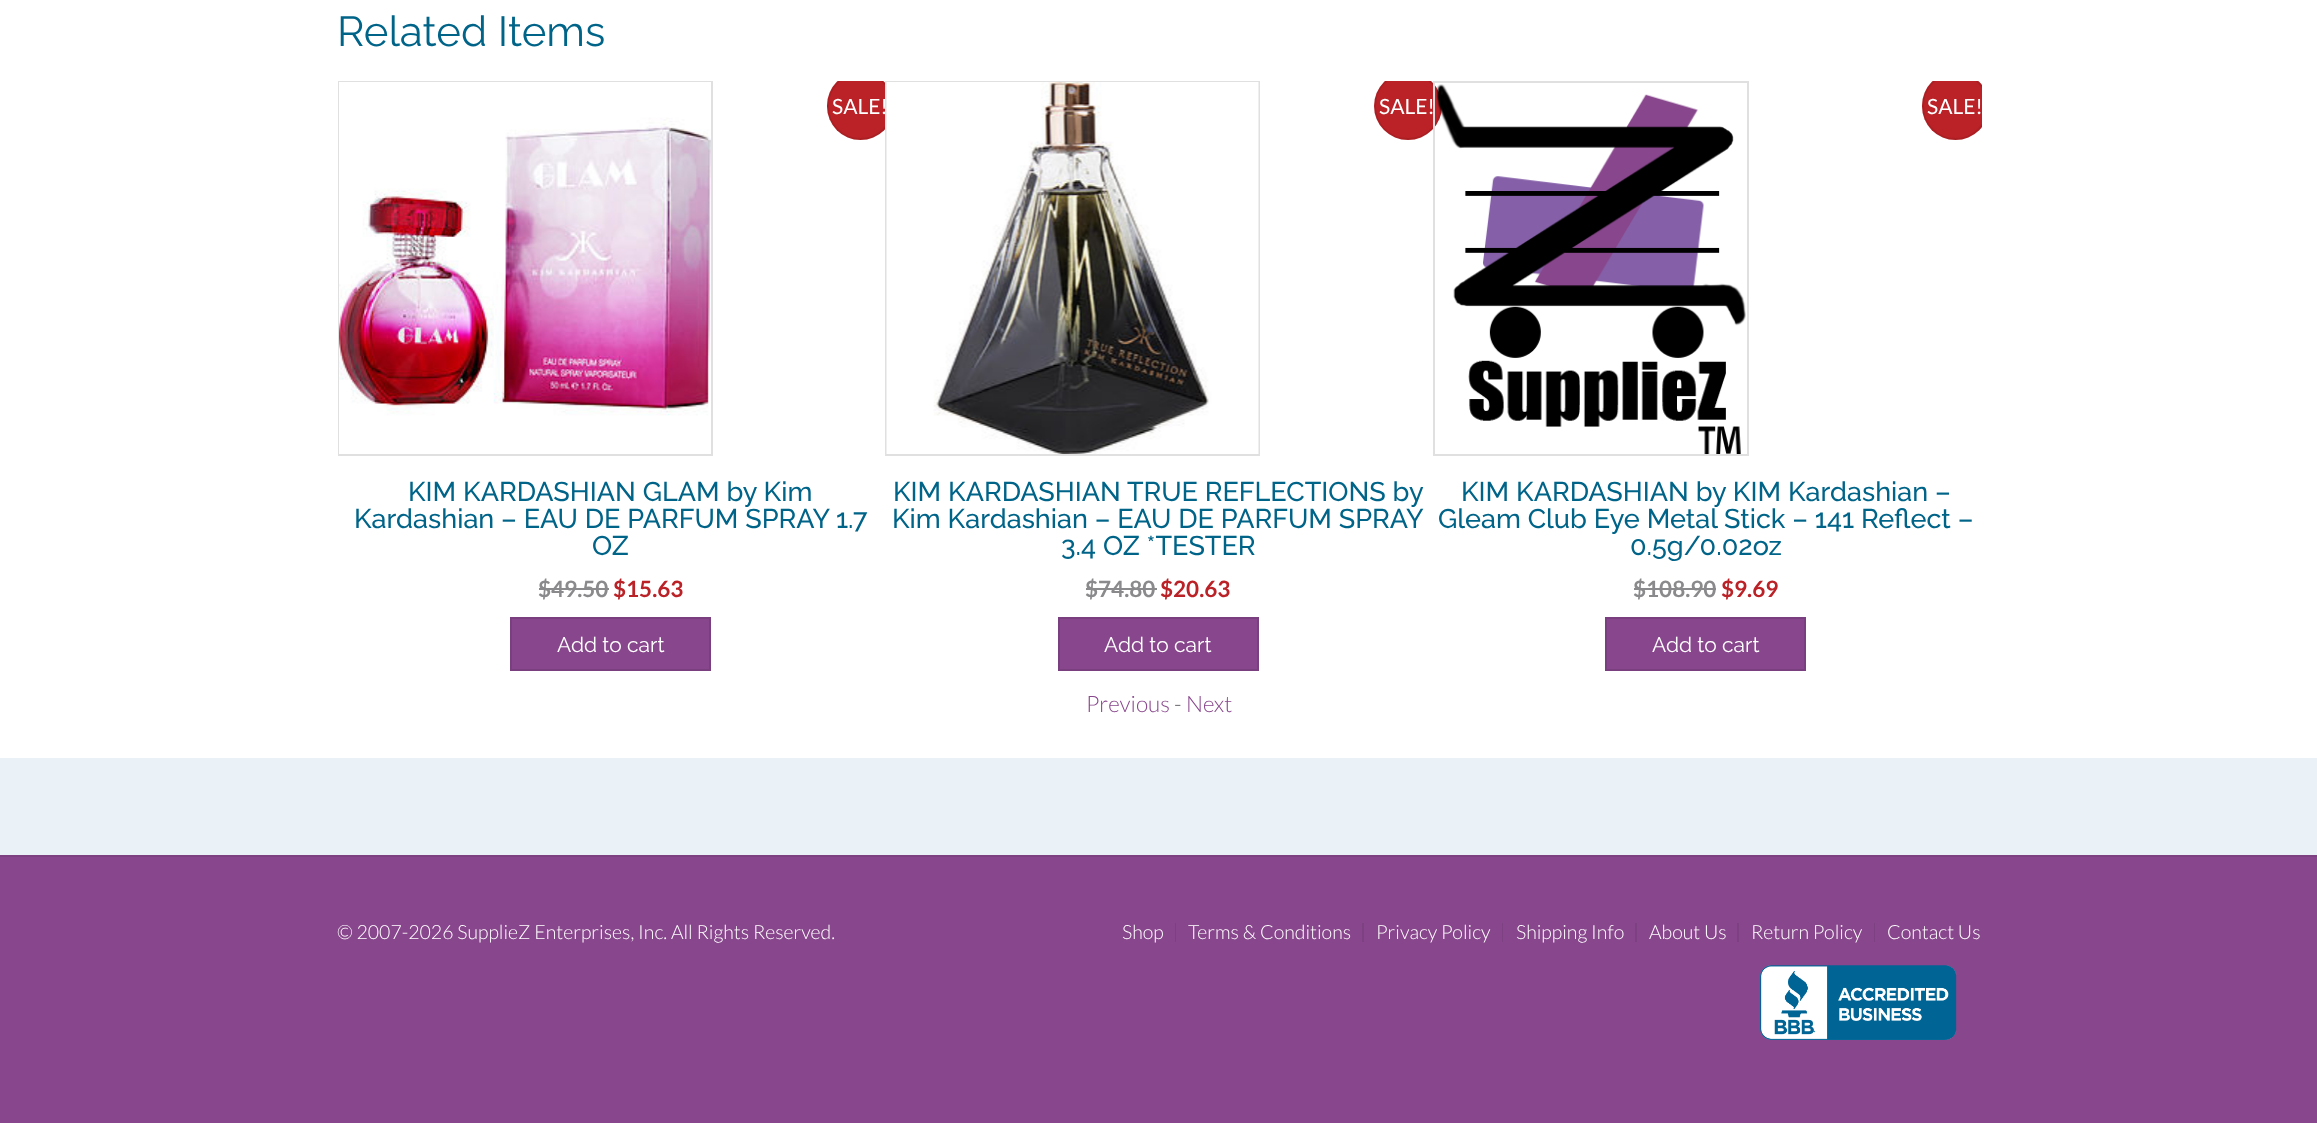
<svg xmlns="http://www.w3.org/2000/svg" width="2317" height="1123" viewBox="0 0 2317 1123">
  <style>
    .t1 { font: 42px Raleway; fill: #006489; }
    .t2 { font: 21px Lato; fill: #fff; }
    .t3 { font: 500 27px Raleway; fill: #006489; }
    .t4 { font: bold 22.5px Lato; fill: #8a8a8c; }
    .t5 { font: bold 22.5px Lato; fill: #ba2227; }
    .t6 { font: 21px Raleway; fill: #fff; }
    .t7 { font: 300 22.5px Lato; fill: #88468c; }
    .t8 { font: 300 22.5px Lato; fill: #58585a; }
    .t9 { font: 300 19.5px Lato; fill: #fff; }
  </style>
  <defs>
    <clipPath id="clip1"><rect x="338" y="81" width="1644" height="590"/></clipPath>
  </defs>
  <rect width="100%" height="100%" fill="#fff"/>
  <text x="337" y="46" class="t1">Related Items</text>
  <rect x="339" y="82" width="373" height="373" fill="none" stroke="#e0e0e0" stroke-width="2"/>
  <image x="339" y="82" width="372" height="372" href="images/1.png"/>
  <g clip-path="url(#clip1)">
    <rect x="827" y="72" width="67" height="68" rx="33.5" fill="#ba2227"/>
    <rect x="828" y="73" width="65" height="66" rx="32.5" fill="none" stroke="#00000014" stroke-width="2"/>
  </g>
  <text x="832" y="114" class="t2">SALE!</text>
  <text x="408" y="501" class="t3">KIM KARDASHIAN GLAM by Kim</text>
  <text x="354" y="528" class="t3">Kardashian – EAU DE PARFUM SPRAY 1.7</text>
  <text x="592" y="555" class="t3">OZ</text>
  <text x="538" y="597" class="t4">$49.50</text>
  <rect x="539" y="588" width="70" height="2" fill="#8a8a8c"/>
  <text x="613" y="597" class="t5">$15.63</text>
  <rect x="511" y="618" width="199" height="52" fill="#88468c" stroke="#7a3f7e" stroke-width="2"/>
  <text x="557" y="652" class="t6">Add to cart</text>
  <rect x="886" y="82" width="373" height="373" fill="none" stroke="#e0e0e0" stroke-width="2"/>
  <image x="886" y="82" width="373" height="372" href="images/2.png"/>
  <g clip-path="url(#clip1)">
    <circle cx="1408" cy="106" r="34" fill="#ba2227"/>
    <circle cx="1408" cy="106" r="33" fill="none" stroke="#00000014" stroke-width="2"/>
  </g>
  <text x="1379" y="114" class="t2">SALE!</text>
  <text x="893" y="501" class="t3">KIM KARDASHIAN TRUE REFLECTIONS by</text>
  <text x="892" y="528" class="t3">Kim Kardashian – EAU DE PARFUM SPRAY</text>
  <text x="1061" y="555" class="t3">3.4 OZ *TESTER</text>
  <text x="1085" y="597" class="t4">$74.80</text>
  <rect x="1086" y="588" width="71" height="2" fill="#8a8a8c"/>
  <text x="1160" y="597" class="t5">$20.63</text>
  <rect x="1059" y="618" width="199" height="52" fill="#88468c" stroke="#7a3f7e" stroke-width="2"/>
  <text x="1104" y="652" class="t6">Add to cart</text>
  <rect x="1434" y="82" width="314" height="373" fill="none" stroke="#e0e0e0" stroke-width="2"/>
  <image x="1436" y="84" width="310" height="370" href="images/3.png"/>
  <g clip-path="url(#clip1)">
    <rect x="1922" y="72" width="67" height="68" rx="33.5" fill="#ba2227"/>
    <rect x="1923" y="73" width="65" height="66" rx="32.5" fill="none" stroke="#00000014" stroke-width="2"/>
  </g>
  <text x="1927" y="114" class="t2">SALE!</text>
  <text x="1461" y="501" class="t3">KIM KARDASHIAN by KIM Kardashian –</text>
  <text x="1438" y="528" class="t3">Gleam Club Eye Metal Stick – 141 Reflect –</text>
  <text x="1630" y="555" class="t3">0.5g/0.02oz</text>
  <text x="1633" y="597" class="t4">$108.90</text>
  <rect x="1634" y="588" width="82" height="2" fill="#8a8a8c"/>
  <text x="1721" y="597" class="t5">$9.69</text>
  <rect x="1606" y="618" width="199" height="52" fill="#88468c" stroke="#7a3f7e" stroke-width="2"/>
  <text x="1652" y="652" class="t6">Add to cart</text>
  <text x="1086" y="712" class="t7">Previous</text>
  <text x="1174" y="712" class="t8">-</text>
  <text x="1186" y="712" class="t7">Next</text>
  <rect x="0" y="758" width="2317" height="97" fill="#eaf1f7"/>
  <rect x="0" y="857" width="2317" height="266" fill="#88468c"/>
  <rect x="0" y="855" width="2317" height="2" fill="#7d4081"/>
  <text x="337" y="939" class="t9">© 2007-2026 SupplieZ Enterprises, Inc. All Rights Reserved.</text>
  <rect x="1175" y="923" width="1" height="19" fill="#7d4081"/>
  <text x="1122" y="939" class="t9">Shop</text>
  <rect x="1362" y="923" width="2" height="19" fill="#7d4081"/>
  <text x="1188" y="939" class="t9">Terms &amp; Conditions</text>
  <rect x="1502" y="923" width="1" height="19" fill="#7d4081"/>
  <text x="1376" y="939" class="t9">Privacy Policy</text>
  <rect x="1635" y="923" width="2" height="19" fill="#7d4081"/>
  <text x="1516" y="939" class="t9">Shipping Info</text>
  <rect x="1737" y="923" width="2" height="19" fill="#7d4081"/>
  <text x="1649" y="939" class="t9">About Us</text>
  <rect x="1874" y="923" width="1" height="19" fill="#7d4081"/>
  <text x="1751" y="939" class="t9">Return Policy</text>
  <text x="1887" y="939" class="t9">Contact Us</text>
  <image x="1760" y="965" width="197" height="75" href="images/4.png"/>
</svg>
